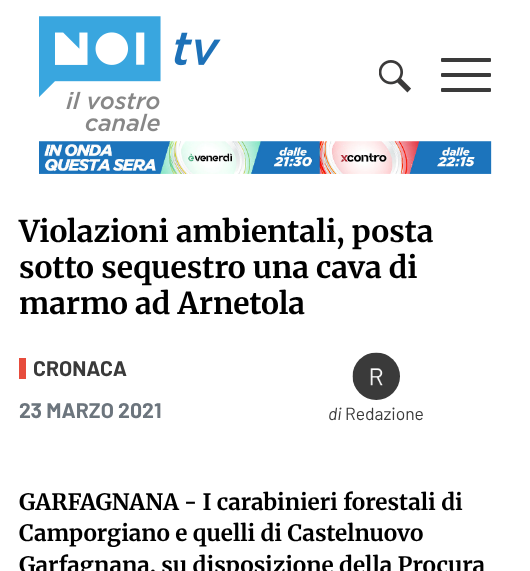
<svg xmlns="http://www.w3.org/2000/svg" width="530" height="571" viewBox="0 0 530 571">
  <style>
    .t1 { font: 300 30px Merriweather; fill: #000; }
    .t2 { font: bold 21.25px Barlow; fill: #3a3a3a; }
    .t3 { font: bold 21.25px Barlow; fill: #6c757d; }
    .t4 { font: italic 17.5px Barlow; fill: #3a3a3a; }
    .t5 { font: 17.5px Barlow; fill: #3a3a3a; }
    .t6 { font: 300 22.5px Merriweather; fill: #000; }
  </style>
  <rect width="100%" height="100%" fill="#fff"/>
  <image x="39" y="16" width="182" height="116" href="images/1.png"/>
  <image x="379" y="60" width="32" height="33" href="images/2.png"/>
  <rect x="441" y="73" width="50" height="4" rx="1" fill="#3a3a3a"/>
  <rect x="441" y="58" width="50" height="4" rx="1" fill="#3a3a3a"/>
  <rect x="441" y="88" width="50" height="4" rx="1" fill="#3a3a3a"/>
  <image x="39" y="141" width="453" height="33" href="images/3.png"/>
  <text x="19" y="242" class="t1">Violazioni ambientali, posta</text>
  <text x="19" y="278" class="t1">sotto sequestro una cava di</text>
  <text x="19" y="314" class="t1">marmo ad Arnetola</text>
  <rect x="19" y="358" width="7" height="21" fill="#e74c3c"/>
  <text x="33" y="376" class="t2">CRONACA</text>
  <text x="19" y="418" class="t3">23 MARZO 2021</text>
  <image x="352" y="352" width="48" height="48" href="images/4.png"/>
  <text x="328" y="420" class="t4">di</text>
  <text x="345" y="420" class="t5">Redazione</text>
  <text x="19" y="510" class="t6">GARFAGNANA - I carabinieri forestali di</text>
  <text x="19" y="541" class="t6">Camporgiano e quelli di Castelnuovo</text>
  <text x="19" y="573" class="t6">Garfagnana, su disposizione della Procura</text>
</svg>
